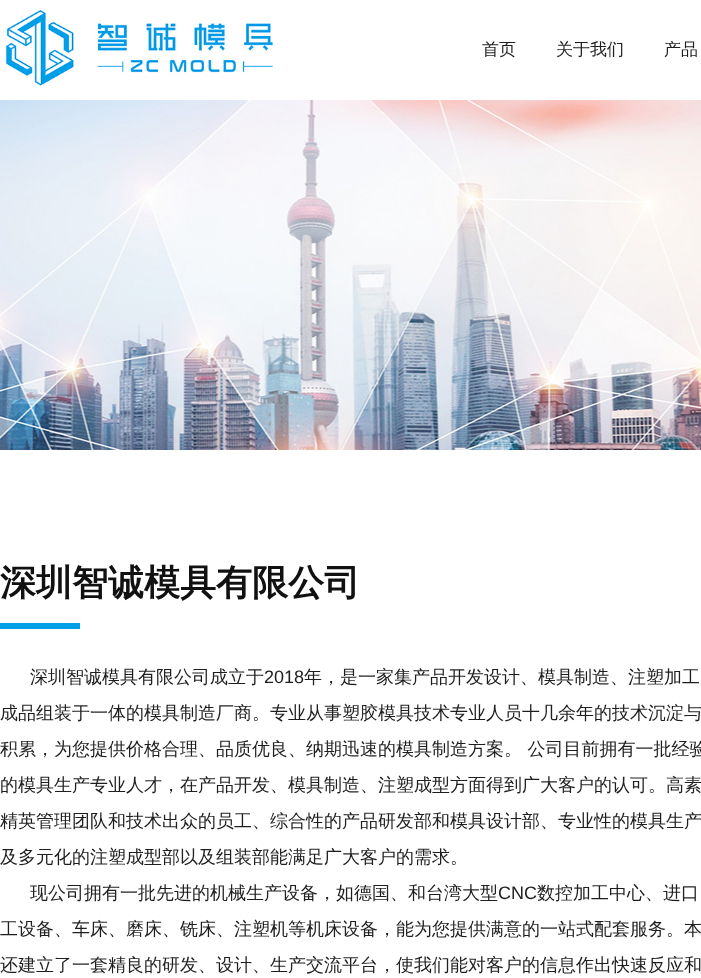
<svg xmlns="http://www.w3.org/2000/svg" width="701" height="978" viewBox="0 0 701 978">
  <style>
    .t1 { font: 500 17px WenQuanYi Zen Hei; fill: #1e1e1e; }
    .t2 { font: bold 36px WenQuanYi Zen Hei; fill: #111; }
    .t3 { font: 500 18px WenQuanYi Zen Hei; fill: #1e1e1e; }
    .t4 { font: 18px Liberation Sans; fill: #1e1e1e; }
  </style>
  <rect width="100%" height="100%" fill="#fff"/>
  <image x="5" y="10" width="268" height="76" href="images/1.png"/>
  <text x="482" y="55" class="t1">首页</text>
  <text x="556" y="55" class="t1">关于我们</text>
  <text x="664" y="55" class="t1">产品</text>
  <image x="0" y="100" width="701" height="350" href="images/2.png"/>
  <text x="0" y="595" class="t2">深圳智诚模具有限公司</text>
  <rect x="0" y="623" width="80" height="6" fill="#00a0e9"/>
  <text x="30" y="683" class="t3">深圳智诚模具有限公司成立于</text>
  <text x="264" y="683" class="t4">2018</text>
  <text x="304" y="683" class="t3">年，是一家集产品开发设计、模具制造、注塑加工</text>
  <text x="0" y="719" class="t3">成品组装于一体的模具制造厂商。专业从事塑胶模具技术专业人员十几余年的技术沉淀与</text>
  <text x="0" y="755" class="t3">积累，为您提供价格合理、品质优良、纳期迅速的模具制造方案。 公司目前拥有一批经验</text>
  <text x="0" y="791" class="t3">的模具生产专业人才，在产品开发、模具制造、注塑成型方面得到广大客户的认可。高素</text>
  <text x="0" y="827" class="t3">精英管理团队和技术出众的员工、综合性的产品研发部和模具设计部、专业性的模具生产</text>
  <text x="0" y="863" class="t3">及多元化的注塑成型部以及组装部能满足广大客户的需求。</text>
  <text x="30" y="899" class="t3">现公司拥有一批先进的机械生产设备，如德国、和台湾大型</text>
  <text x="498" y="899" class="t4">CNC</text>
  <text x="537" y="899" class="t3">数控加工中心、进口</text>
  <text x="0" y="935" class="t3">工设备、车床、磨床、铣床、注塑机等机床设备，能为您提供满意的一站式配套服务。本</text>
  <text x="0" y="971" class="t3">还建立了一套精良的研发、设计、生产交流平台，使我们能对客户的信息作出快速反应和</text>
</svg>
